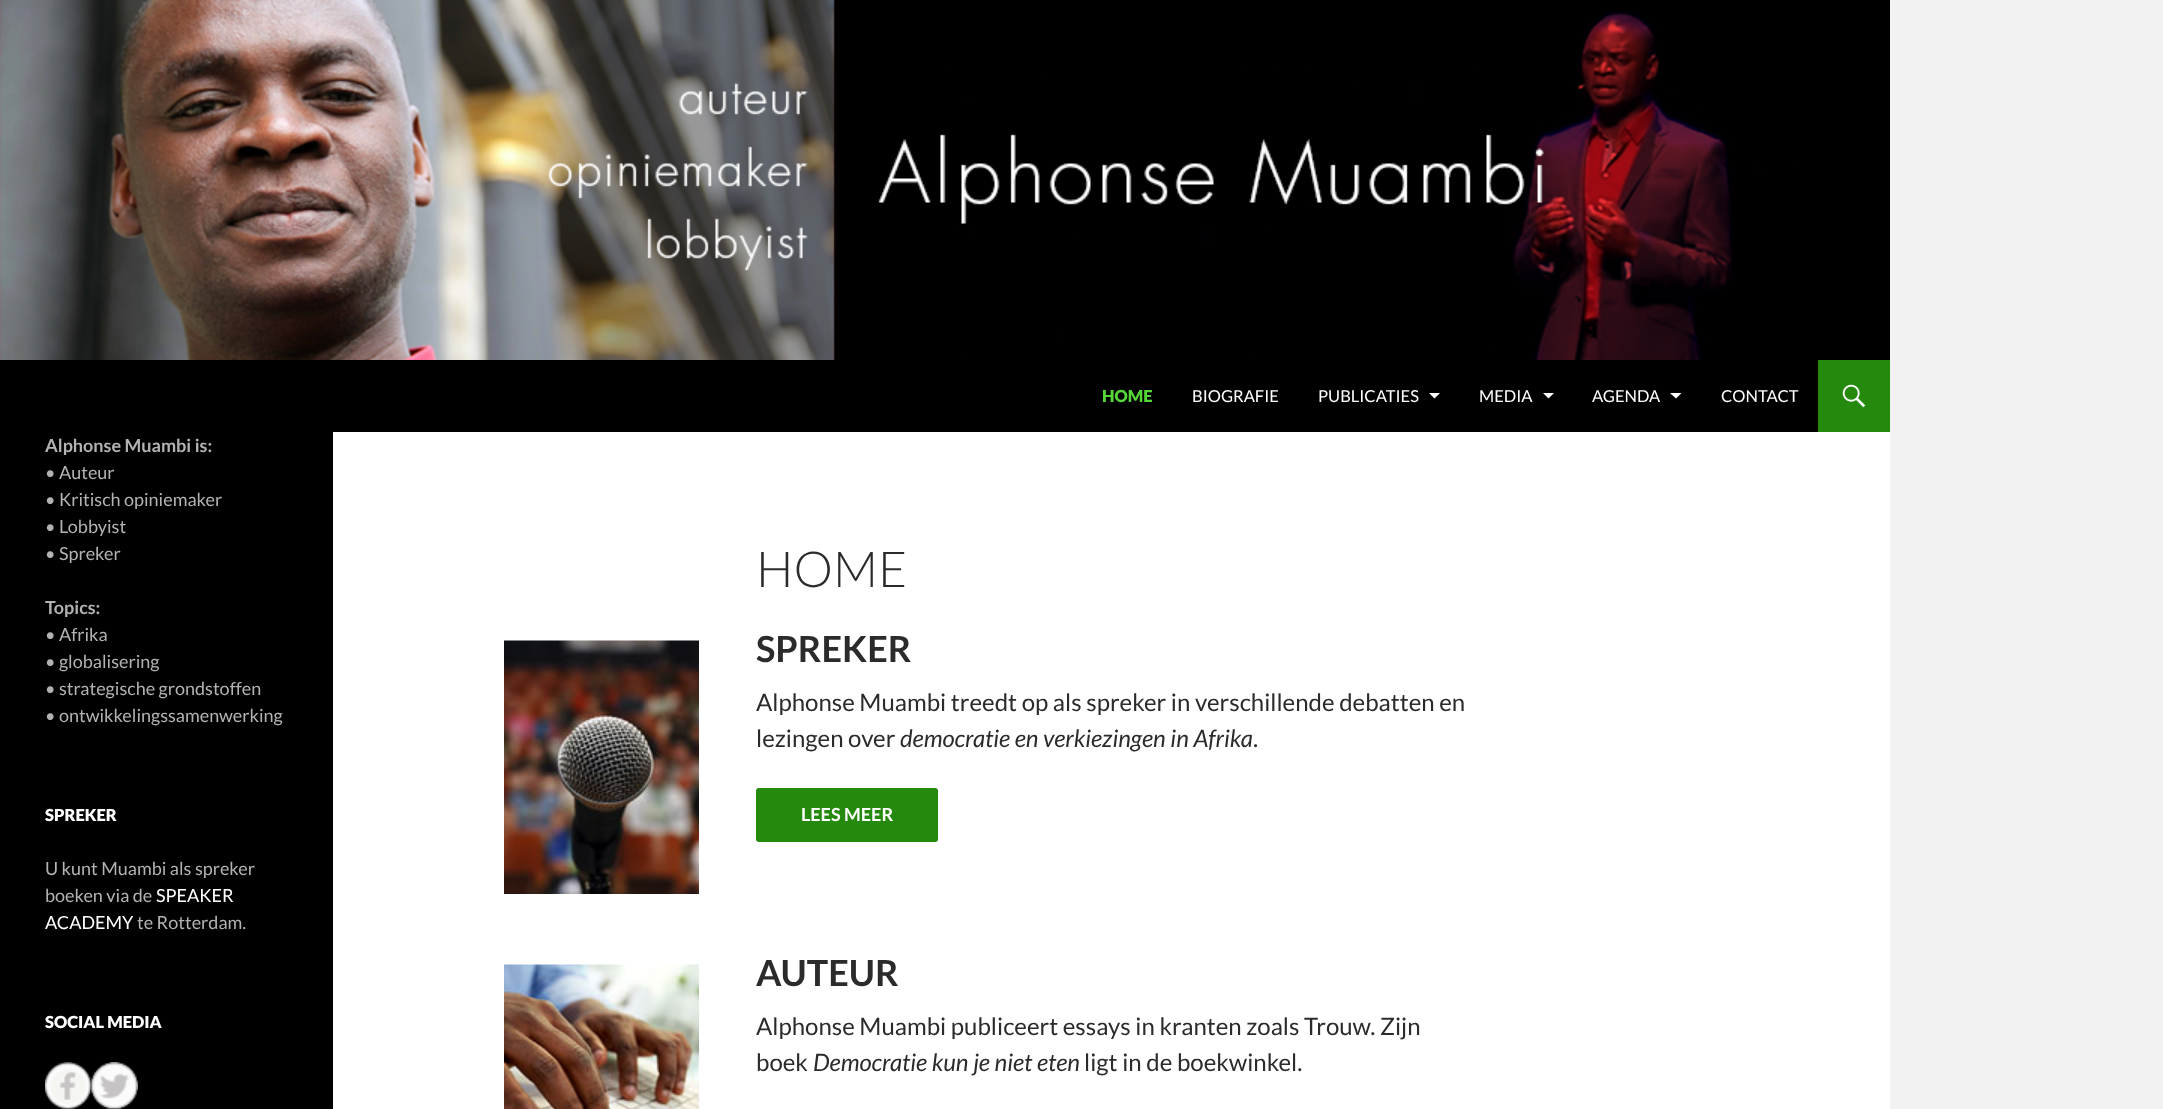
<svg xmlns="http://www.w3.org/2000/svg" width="2163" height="1109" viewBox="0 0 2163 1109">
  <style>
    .t1 { font: 900 16.5px Lato; fill: #55d737; }
    .t2 { font: 16.5px Lato; fill: #fff; }
    .t3 { font: bold 18px Lato; fill: #b3b3b3; }
    .t4 { font: 18px Lato; fill: #b3b3b3; }
    .t5 { font: 900 16.5px Lato; fill: #fff; }
    .t6 { font: 18px Lato; fill: #fff; }
    .t7 { font: 300 49.5px Lato; fill: #2b2b2b; }
    .t8 { font: bold 36px Lato; fill: #2b2b2b; }
    .t9 { font: 24px Lato; fill: #2b2b2b; }
    .t10 { font: italic 24px Lato; fill: #2b2b2b; }
    .t11 { font: bold 18px Lato; fill: #fff; }
  </style>
  <rect width="100%" height="100%" fill="#f2f2f2"/>
  <rect x="333" y="0" width="1557" height="1109" fill="#fff"/>
  <rect x="0" y="0" width="333" height="1109" fill="#000"/>
  <image x="0" y="0" width="1890" height="360" href="images/1.png"/>
  <rect x="333" y="360" width="1485" height="72" fill="#000"/>
  <text x="1102" y="402" class="t1">HOME</text>
  <text x="1192" y="402" class="t2">BIOGRAFIE</text>
  <text x="1318" y="402" class="t2">PUBLICATIES</text>
  <path d="M1429 393L1434.5 398.5L1440 393Z" fill="#fff"/>
  <text x="1479" y="402" class="t2">MEDIA</text>
  <path d="M1543 393L1548.5 398.5L1554 393Z" fill="#fff"/>
  <text x="1592" y="402" class="t2">AGENDA</text>
  <path d="M1670 393L1676 398.5L1681.5 393Z" fill="#fff"/>
  <text x="1721" y="402" class="t2">CONTACT</text>
  <rect x="1818" y="360" width="72" height="72" fill="#24890d"/>
  <image x="1842" y="384" width="24" height="24" href="images/2.png"/>
  <text x="45" y="452" class="t3">Alphonse Muambi is:</text>
  <text x="45" y="479" class="t4">• Auteur</text>
  <text x="45" y="506" class="t4">• Kritisch opiniemaker</text>
  <text x="45" y="533" class="t4">• Lobbyist</text>
  <text x="45" y="560" class="t4">• Spreker</text>
  <text x="45" y="614" class="t3">Topics:</text>
  <text x="45" y="641" class="t4">• Afrika</text>
  <text x="45" y="668" class="t4">• globalisering</text>
  <text x="45" y="695" class="t4">• strategische grondstoffen</text>
  <text x="45" y="722" class="t4">• ontwikkelingssamenwerking</text>
  <text x="45" y="821" class="t5">SPREKER</text>
  <text x="45" y="875" class="t4">U kunt Muambi als spreker</text>
  <text x="45" y="902" class="t4">boeken via de</text>
  <text x="156" y="902" class="t6">SPEAKER</text>
  <text x="45" y="929" class="t6">ACADEMY</text>
  <text x="137" y="929" class="t4">te Rotterdam.</text>
  <text x="45" y="1028" class="t5">SOCIAL MEDIA</text>
  <image x="45" y="1062" width="47" height="47" href="images/3.png"/>
  <image x="91" y="1062" width="47" height="47" href="images/4.png"/>
  <text x="756" y="587" class="t7">HOME</text>
  <image x="504" y="640" width="195" height="254" href="images/5.png"/>
  <text x="756" y="662" class="t8">SPREKER</text>
  <text x="756" y="711" class="t9">Alphonse Muambi treedt op als spreker in verschillende debatten en</text>
  <text x="756" y="747" class="t9">lezingen over</text>
  <text x="900" y="747" class="t10">democratie en verkiezingen in Afrika</text>
  <text x="1253" y="747" class="t9">.</text>
  <rect x="756" y="788" width="182" height="54" rx="3" fill="#24890d"/>
  <text x="801" y="821" class="t11">LEES MEER</text>
  <image x="504" y="964" width="195" height="145" href="images/6.png"/>
  <text x="756" y="986" class="t8">AUTEUR</text>
  <text x="756" y="1035" class="t9">Alphonse Muambi publiceert essays in kranten zoals Trouw. Zijn</text>
  <text x="756" y="1071" class="t9">boek</text>
  <text x="813" y="1071" class="t10">Democratie kun je niet eten</text>
  <text x="1084" y="1071" class="t9">ligt in de boekwinkel.</text>
</svg>
